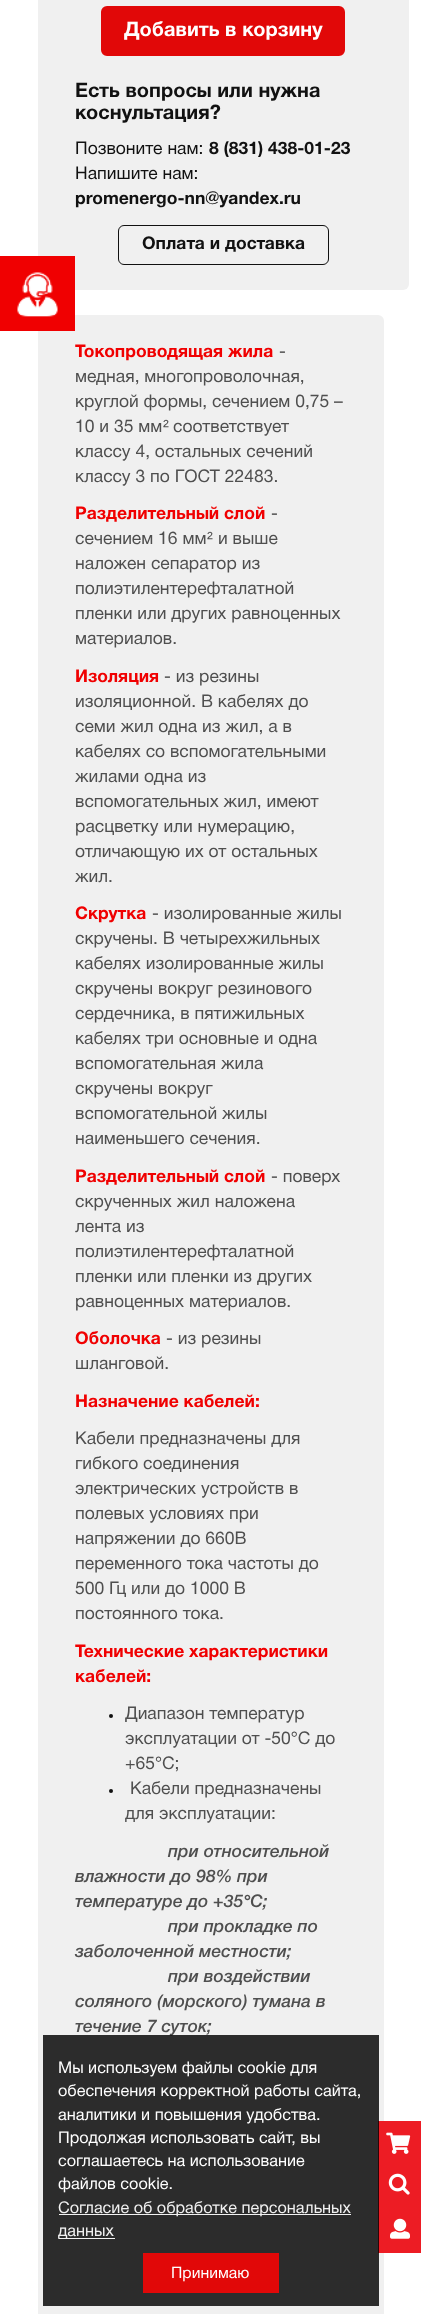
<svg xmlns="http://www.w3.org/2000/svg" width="421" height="2314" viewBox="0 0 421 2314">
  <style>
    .t1 { font: bold 20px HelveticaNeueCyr; fill: #fff; }
    .t2 { font: bold 20px HelveticaNeueCyr; fill: #111; }
    .t3 { font: 17.5px HelveticaNeueCyr; fill: #111; }
    .t4 { font: bold 17.5px HelveticaNeueCyr; fill: #111; }
    .t5 { font: bold 17.5px HelveticaNeueCyr; fill: #f00001; }
    .t6 { font: 17.5px HelveticaNeueCyr; fill: #4f4f4f; }
    .t7 { font: 17.5px Liberation Sans; fill: #4f4f4f; }
    .t8 { font: italic 500 17.5px HelveticaNeueCyr; fill: #4f4f4f; }
    .t9 { font: 16.25px HelveticaNeueCyr; fill: #fff; }
    .t10 { font: 16.25px HelveticaNeueCyr; fill: #f1f1f1; }
    .t11 { font: 15.75px HelveticaNeueCyr; fill: #fff; }
  </style>
  <rect width="100%" height="100%" fill="#fff"/>
  <rect x="38" y="-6" width="371" height="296" rx="6" fill="#f0f0f0"/>
  <rect x="38" y="315" width="346" height="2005" rx="6" fill="#f0f0f0"/>
  <rect x="0" y="256" width="75" height="75" fill="#f00001"/>
  <image x="17" y="272" width="41" height="45" href="images/1.png"/>
  <rect x="102.5" y="7.5" width="241" height="47" rx="4.5" fill="#e10808" stroke="#e10808" stroke-width="3"/>
  <text x="124" y="36" class="t1">Добавить в корзину</text>
  <text x="75" y="97" class="t2">Есть вопросы или нужна</text>
  <text x="75" y="119" class="t2">коснультация?</text>
  <text x="75" y="154" class="t3">Позвоните нам:</text>
  <text x="209" y="154" class="t4">8 (831) 438-01-23</text>
  <text x="75" y="179" class="t3">Напишите нам:</text>
  <text x="75" y="204" class="t4">promenergo-nn@yandex.ru</text>
  <rect x="118.5" y="225.5" width="210" height="39" rx="5.5" fill="none" stroke="#111"/>
  <text x="142" y="249" class="t4">Оплата и доставка</text>
  <text x="75" y="357" class="t5">Токопроводящая жила</text>
  <text x="279" y="357" class="t6">-</text>
  <text x="75" y="382" class="t6">медная, многопроволочная,</text>
  <text x="75" y="407" class="t6">круглой формы, сечением 0,75 –</text>
  <text x="75" y="432" class="t6">10 и 35 мм</text>
  <text x="163" y="432" class="t7">²</text>
  <text x="173" y="432" class="t6">соответствует</text>
  <text x="75" y="457" class="t6">классу 4, остальных сечений</text>
  <text x="75" y="482" class="t6">классу 3 по ГОСТ 22483.</text>
  <text x="75" y="519" class="t5">Разделительный слой</text>
  <text x="271" y="519" class="t6">-</text>
  <text x="75" y="544" class="t6">сечением 16 мм</text>
  <text x="207" y="544" class="t7">²</text>
  <text x="218" y="544" class="t6">и выше</text>
  <text x="75" y="569" class="t6">наложен сепаратор из</text>
  <text x="75" y="594" class="t6">полиэтилентерефталатной</text>
  <text x="75" y="619" class="t6">пленки или других равноценных</text>
  <text x="75" y="644" class="t6">материалов.</text>
  <text x="75" y="682" class="t5">Изоляция</text>
  <text x="164" y="682" class="t6">- из резины</text>
  <text x="75" y="707" class="t6">изоляционной. В кабелях до</text>
  <text x="75" y="732" class="t6">семи жил одна из жил, а в</text>
  <text x="75" y="757" class="t6">кабелях со вспомогательными</text>
  <text x="75" y="782" class="t6">жилами одна из</text>
  <text x="75" y="807" class="t6">вспомогательных жил, имеют</text>
  <text x="75" y="832" class="t6">расцветку или нумерацию,</text>
  <text x="75" y="857" class="t6">отличающую их от остальных</text>
  <text x="75" y="882" class="t6">жил.</text>
  <text x="75" y="919" class="t5">Скрутка</text>
  <text x="152" y="919" class="t6">- изолированные жилы</text>
  <text x="75" y="944" class="t6">скручены. В четырехжильных</text>
  <text x="75" y="969" class="t6">кабелях изолированные жилы</text>
  <text x="75" y="994" class="t6">скручены вокруг резинового</text>
  <text x="75" y="1019" class="t6">сердечника, в пятижильных</text>
  <text x="75" y="1044" class="t6">кабелях три основные и одна</text>
  <text x="75" y="1069" class="t6">вспомогательная жила</text>
  <text x="75" y="1094" class="t6">скручены вокруг</text>
  <text x="75" y="1119" class="t6">вспомогательной жилы</text>
  <text x="75" y="1144" class="t6">наименьшего сечения.</text>
  <text x="75" y="1182" class="t5">Разделительный слой</text>
  <text x="271" y="1182" class="t6">- поверх</text>
  <text x="75" y="1207" class="t6">скрученных жил наложена</text>
  <text x="75" y="1232" class="t6">лента из</text>
  <text x="75" y="1257" class="t6">полиэтилентерефталатной</text>
  <text x="75" y="1282" class="t6">пленки или пленки из других</text>
  <text x="75" y="1307" class="t6">равноценных материалов.</text>
  <text x="75" y="1344" class="t5">Оболочка</text>
  <text x="166" y="1344" class="t6">- из резины</text>
  <text x="75" y="1369" class="t6">шланговой.</text>
  <text x="75" y="1407" class="t5">Назначение кабелей:</text>
  <text x="75" y="1444" class="t6">Кабели предназначены для</text>
  <text x="75" y="1469" class="t6">гибкого соединения</text>
  <text x="75" y="1494" class="t6">электрических устройств в</text>
  <text x="75" y="1519" class="t6">полевых условиях при</text>
  <text x="75" y="1544" class="t6">напряжении до 660В</text>
  <text x="75" y="1569" class="t6">переменного тока частоты до</text>
  <text x="75" y="1594" class="t6">500 Гц или до 1000 В</text>
  <text x="75" y="1619" class="t6">постоянного тока.</text>
  <text x="75" y="1657" class="t5">Технические характеристики</text>
  <text x="75" y="1682" class="t5">кабелей:</text>
  <circle cx="111" cy="1716" r="2" fill="#111"/>
  <text x="125" y="1719" class="t6">Диапазон температур</text>
  <text x="125" y="1744" class="t6">эксплуатации от -50°С до</text>
  <text x="125" y="1769" class="t6">+65°С;</text>
  <circle cx="111" cy="1791" r="2" fill="#111"/>
  <text x="130" y="1794" class="t6">Кабели предназначены</text>
  <text x="125" y="1819" class="t6">для эксплуатации:</text>
  <text x="168" y="1857" class="t8">при относительной</text>
  <text x="75" y="1882" class="t8">влажности до 98% при</text>
  <text x="75" y="1907" class="t8">температуре до +35°С;</text>
  <text x="168" y="1932" class="t8">при прокладке по</text>
  <text x="75" y="1957" class="t8">заболоченной местности;</text>
  <text x="168" y="1982" class="t8">при воздействии</text>
  <text x="75" y="2007" class="t8">соляного (морского) тумана в</text>
  <text x="75" y="2032" class="t8">течение 7 суток;</text>
  <rect x="378" y="2121" width="43" height="132" fill="#ed1c24"/>
  <rect x="43" y="2035" width="336" height="271" fill="#000000d1"/>
  <text x="58" y="2073" class="t9">Мы используем файлы cookie для</text>
  <text x="58" y="2096" class="t9">обеспечения корректной работы сайта,</text>
  <text x="58" y="2120" class="t9">аналитики и повышения удобства.</text>
  <text x="58" y="2143" class="t9">Продолжая использовать сайт, вы</text>
  <text x="58" y="2166" class="t9">соглашаетесь на использование</text>
  <text x="58" y="2189" class="t9">файлов cookie.</text>
  <rect x="59" y="2214" width="292" height="1" fill="#f1f1f1"/>
  <text x="58" y="2213" class="t10">Согласие об обработке персональных</text>
  <rect x="59" y="2238" width="56" height="1" fill="#f1f1f1"/>
  <text x="58" y="2236" class="t10">данных</text>
  <rect x="143" y="2253" width="136" height="40" fill="#e10808"/>
  <text x="171" y="2278" class="t11">Принимаю</text>
  <image x="386" y="2132" width="25" height="22" href="images/2.png"/>
  <image x="388" y="2173" width="22" height="22" href="images/3.png"/>
  <image x="390" y="2218" width="20" height="21" href="images/4.png"/>
</svg>
